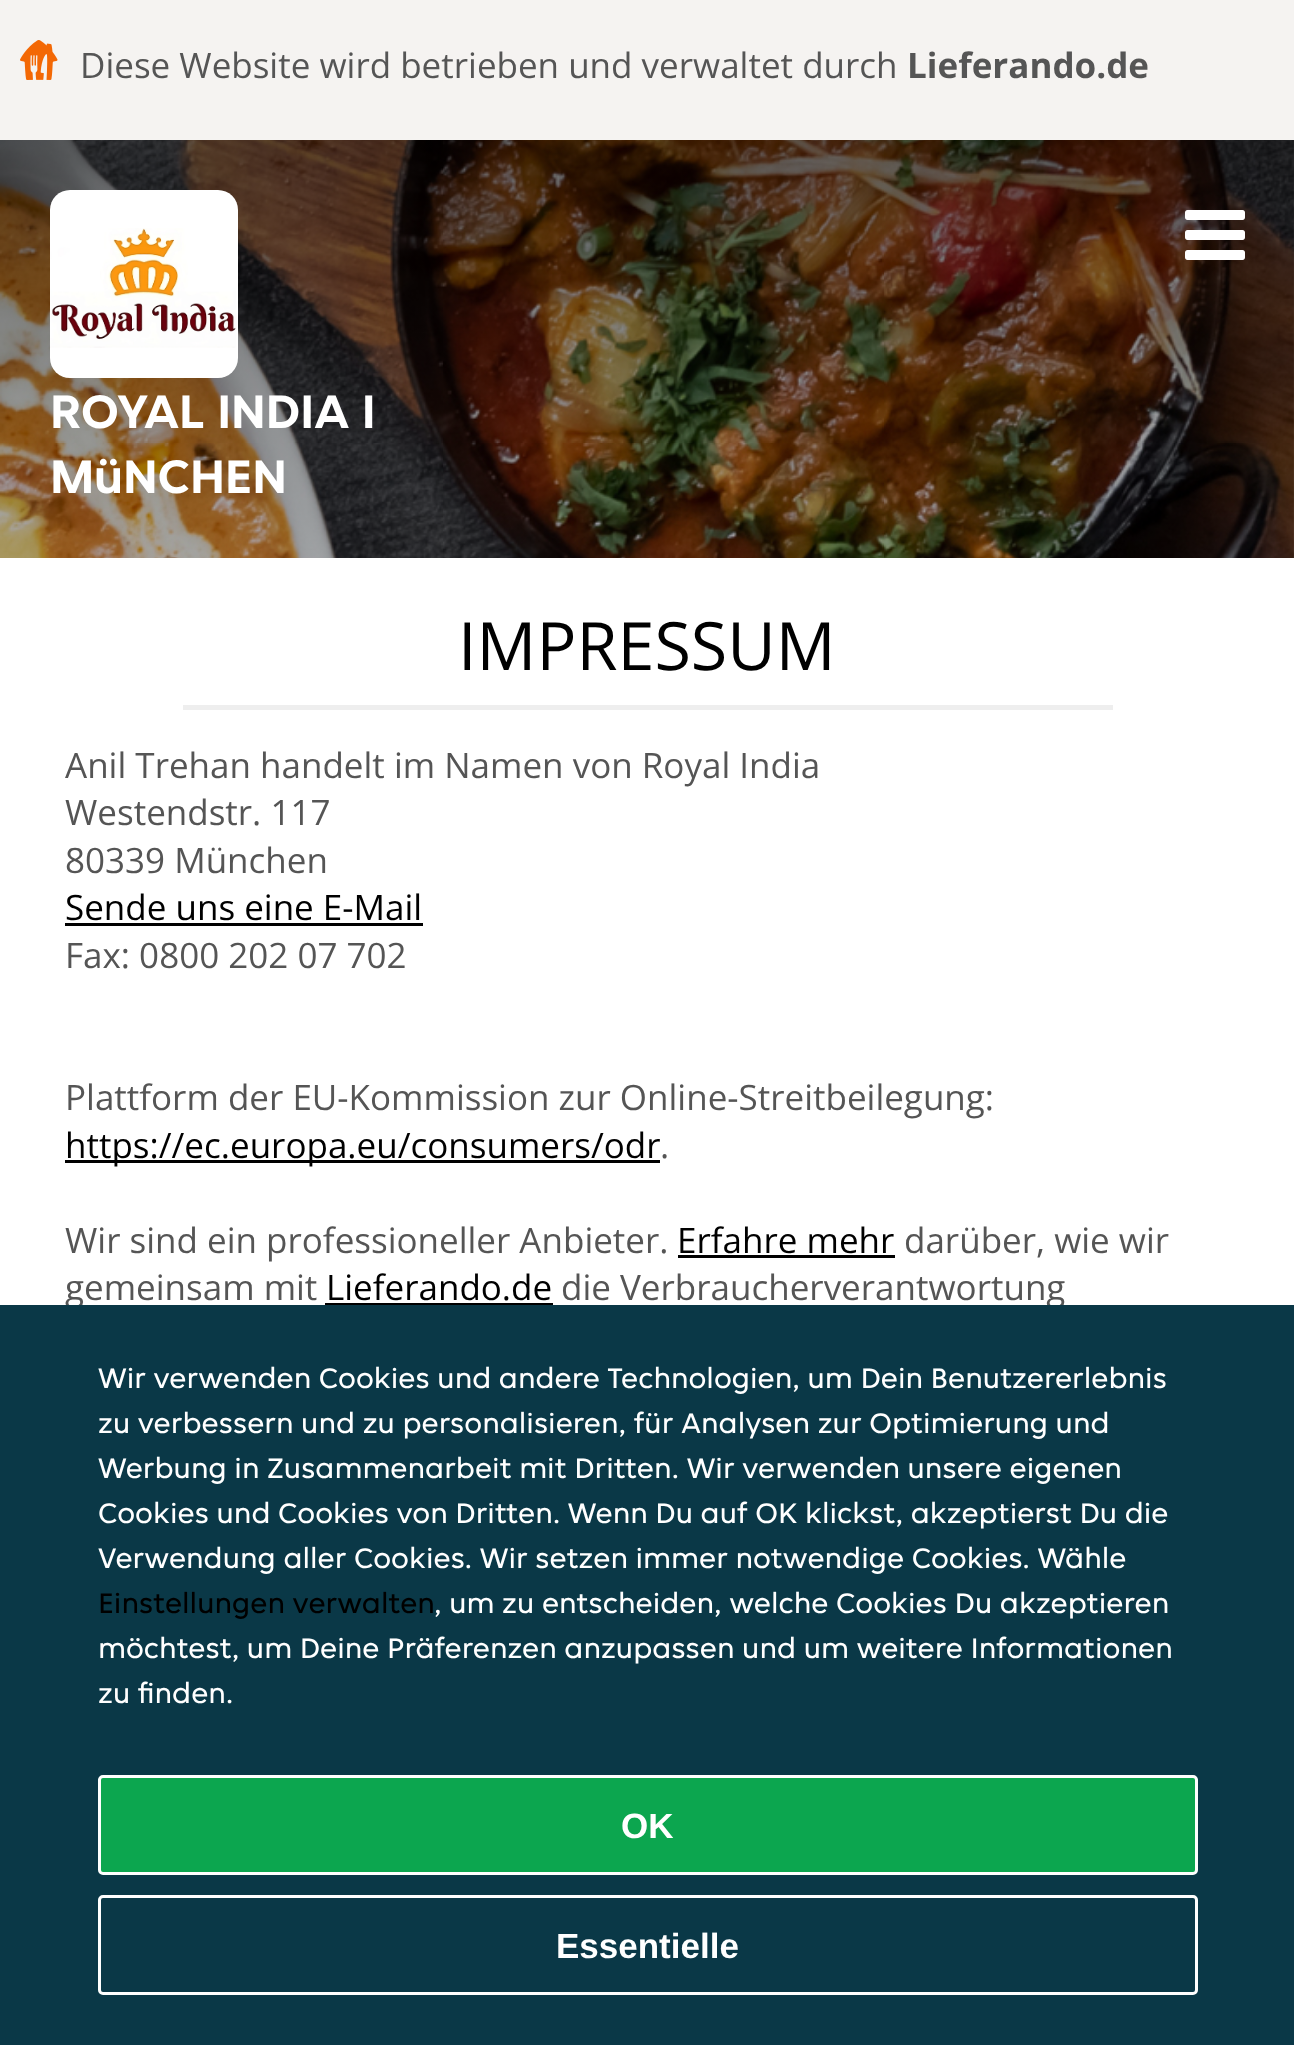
<svg xmlns="http://www.w3.org/2000/svg" width="1294" height="2045" viewBox="0 0 1294 2045">
  <style>
    .t1 { font: 35px Open Sans; fill: #555; }
    .t2 { font: bold 35px Open Sans; fill: #555; }
    .t3 { font: bold 50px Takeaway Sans; fill: #fff; }
    .t4 { font: 66.5px Open Sans; fill: #000; }
    .t5 { font: 35px Open Sans; fill: #000; }
    .t6 { font: 30px Takeaway Sans; fill: #fff; }
    .t7 { font: 30px Takeaway Sans; fill: #000; }
    .t8 { font: bold 35px Liberation Sans; fill: #fff; }
  </style>
  <defs>
    <linearGradient id="g1" gradientUnits="userSpaceOnUse" x1="647" y1="0" x2="648" y2="1250"><stop offset="0" stop-color="#000" stop-opacity="0.7"/><stop offset="0.33" stop-color="#000" stop-opacity="0.4"/><stop offset="0.67" stop-color="#000" stop-opacity="0.2"/><stop offset="1" stop-color="#000" stop-opacity="0"/></linearGradient>
  </defs>
  <rect width="100%" height="100%" fill="#fff"/>
  <rect x="0" y="0" width="1294" height="140" fill="#f5f3f1"/>
  <image x="20" y="40" width="38" height="40" href="images/1.png"/>
  <text x="80" y="78" class="t1">Diese Website wird betrieben und verwaltet durch</text>
  <text x="907" y="78" class="t2">Lieferando.de</text>
  <image x="0" y="140" width="1294" height="418" href="images/2.png"/>
  <rect x="0" y="140" width="1294" height="418" fill="url(#g1)"/>
  <image x="1185" y="210" width="60" height="50" href="images/3.png"/>
  <rect x="50" y="190" width="188" height="188" rx="20" fill="#fff"/>
  <image x="50" y="228" width="186" height="120" href="images/4.png"/>
  <text x="50" y="428" class="t3">ROYAL INDIA I</text>
  <text x="50" y="493" class="t3">MüNCHEN</text>
  <text x="458" y="670" class="t4">IMPRESSUM</text>
  <rect x="183" y="705" width="930" height="5" fill="#eee"/>
  <text x="65" y="778" class="t1">Anil Trehan handelt im Namen von Royal India</text>
  <text x="65" y="825" class="t1">Westendstr. 117</text>
  <text x="65" y="873" class="t1">80339 München</text>
  <text x="65" y="920" class="t5">Sende uns eine E-Mail</text>
  <rect x="65" y="923" width="358" height="3" fill="#000"/>
  <text x="65" y="968" class="t1">Fax: 0800 202 07 702</text>
  <text x="65" y="1110" class="t1">Plattform der EU-Kommission zur Online-Streitbeilegung:</text>
  <rect x="65" y="1160" width="595" height="3" fill="#000"/>
  <text x="65" y="1158" class="t5">https://ec.europa.eu/consumers/odr</text>
  <text x="660" y="1158" class="t1">.</text>
  <text x="65" y="1253" class="t1">Wir sind ein professioneller Anbieter.</text>
  <text x="677" y="1253" class="t5">Erfahre mehr</text>
  <rect x="678" y="1255" width="217" height="3" fill="#000"/>
  <text x="904" y="1253" class="t1">darüber, wie wir</text>
  <text x="65" y="1300" class="t1">gemeinsam mit</text>
  <text x="326" y="1300" class="t5">Lieferando.de</text>
  <rect x="325" y="1303" width="228" height="2" fill="#000"/>
  <text x="561" y="1300" class="t1">die Verbraucherverantwortung</text>
  <rect x="0" y="1305" width="1294" height="740" fill="#0a3847"/>
  <text x="98" y="1388" class="t6">Wir verwenden Cookies und andere Technologien, um Dein Benutzererlebnis</text>
  <text x="98" y="1433" class="t6">zu verbessern und zu personalisieren, für Analysen zur Optimierung und</text>
  <text x="98" y="1478" class="t6">Werbung in Zusammenarbeit mit Dritten. Wir verwenden unsere eigenen</text>
  <text x="98" y="1523" class="t6">Cookies und Cookies von Dritten. Wenn Du auf OK klickst, akzeptierst Du die</text>
  <text x="98" y="1568" class="t6">Verwendung aller Cookies. Wir setzen immer notwendige Cookies. Wähle</text>
  <text x="98" y="1613" class="t7">Einstellungen verwalten</text>
  <text x="434" y="1613" class="t6">, um zu entscheiden, welche Cookies Du akzeptieren</text>
  <text x="98" y="1658" class="t6">möchtest, um Deine Präferenzen anzupassen und um weitere Informationen</text>
  <text x="98" y="1703" class="t6">zu finden.</text>
  <rect x="99.5" y="1776.5" width="1097" height="97" rx="3.5" fill="#0ca64f" stroke="#fff" stroke-width="3"/>
  <text x="621" y="1838" class="t8">OK</text>
  <rect x="99.5" y="1896.5" width="1097" height="97" rx="3.5" fill="none" stroke="#fff" stroke-width="3"/>
  <text x="556" y="1958" class="t8">Essentielle</text>
</svg>
